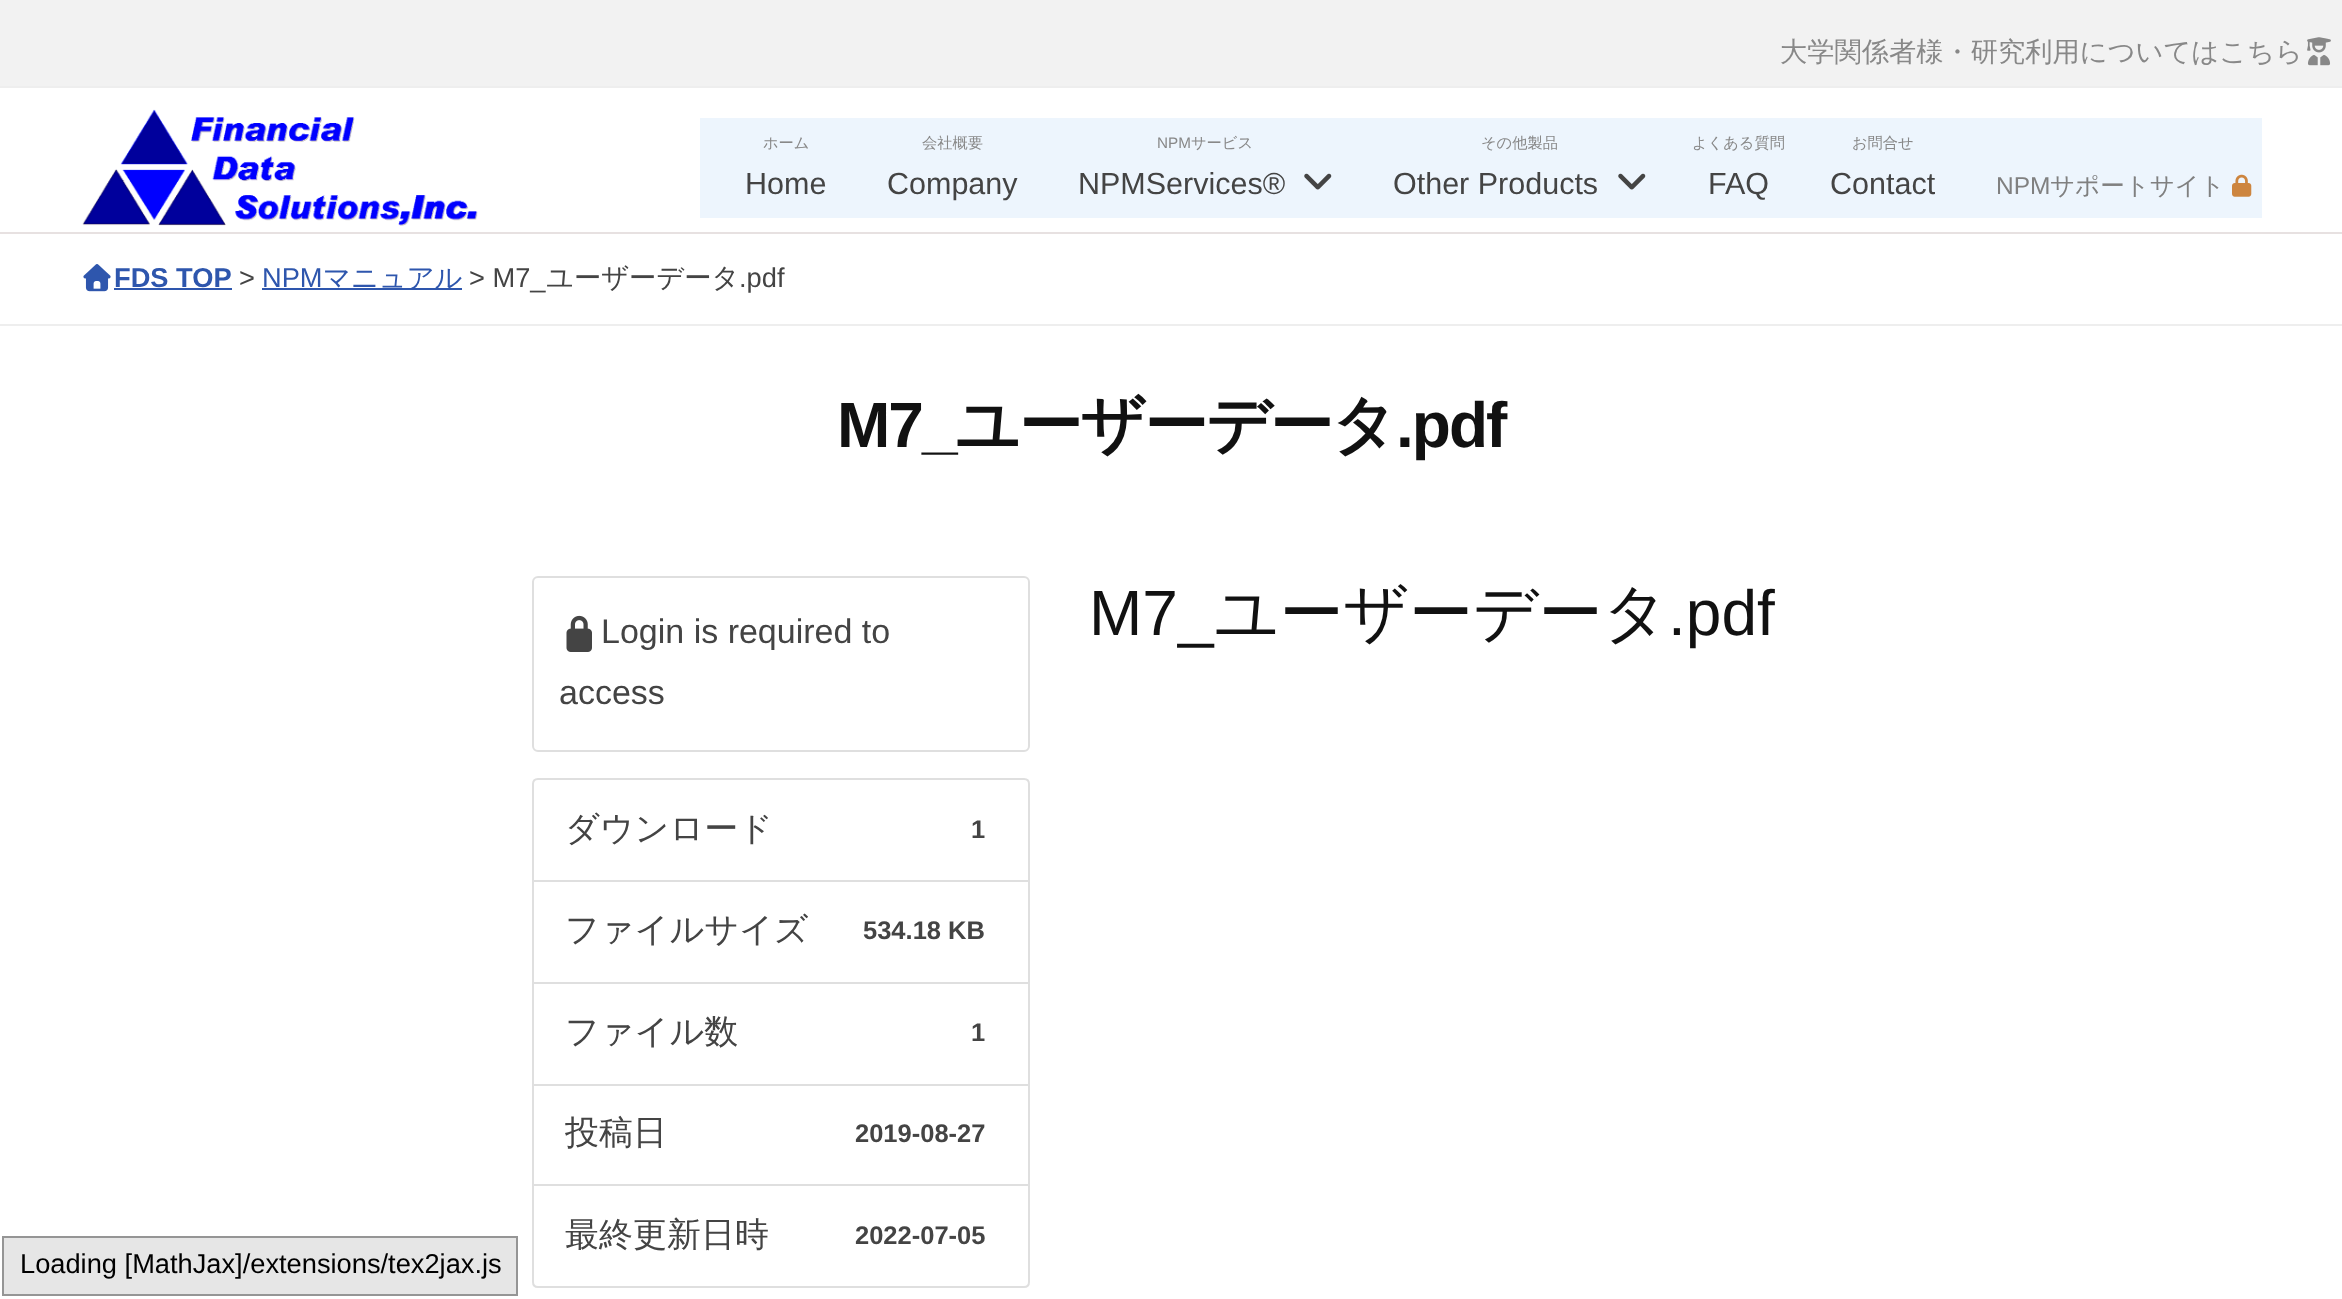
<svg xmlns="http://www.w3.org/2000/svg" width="2342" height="1299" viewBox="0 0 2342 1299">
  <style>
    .t1 { font: 500 27.25px WenQuanYi Zen Hei; fill: #888; }
    .t2 { font: 500 15.25px WenQuanYi Zen Hei; fill: #888; }
    .t3 { font: 30.5px Liberation Sans; fill: #444; }
    .t4 { font: 15.25px Liberation Sans; fill: #888; }
    .t5 { font: 24.5px Liberation Sans; fill: #808080; }
    .t6 { font: 500 24.5px WenQuanYi Zen Hei; fill: #808080; }
    .t7 { font: bold 27.25px Liberation Sans; fill: #2e56ad; }
    .t8 { font: 27.25px Liberation Sans; fill: #444; }
    .t9 { font: 27.25px Liberation Sans; fill: #2e56ad; }
    .t10 { font: 500 27.25px WenQuanYi Zen Hei; fill: #2e56ad; }
    .t11 { font: 500 27.25px WenQuanYi Zen Hei; fill: #444; }
    .t12 { font: bold 64px Liberation Sans; letter-spacing: -2px; fill: #111; }
    .t13 { font: bold 64px WenQuanYi Zen Hei; letter-spacing: -2px; fill: #111; }
    .t14 { font: 34px Liberation Sans; fill: #444; }
    .t15 { font: 500 34px WenQuanYi Zen Hei; fill: #444; }
    .t16 { font: bold 25.5px Liberation Sans; fill: #444; }
    .t17 { font: 64px Liberation Sans; fill: #111; }
    .t18 { font: 500 64px WenQuanYi Zen Hei; fill: #111; }
    .t19 { font: 27.25px Liberation Sans; fill: #000; }
  </style>
  <rect width="100%" height="100%" fill="#fff"/>
  <rect x="0" y="324" width="2342" height="2" fill="#eee"/>
  <rect x="0" y="0" width="2342" height="86" fill="#f2f2f2"/>
  <rect x="0" y="86" width="2342" height="2" fill="#eee"/>
  <text x="1780" y="61" class="t1">大学関係者様・研究利用についてはこちら</text>
  <image x="2307" y="37" width="24" height="29" href="images/1.png"/>
  <image x="82" y="109" width="396" height="117" href="images/2.png"/>
  <rect x="700" y="118" width="1562" height="100" fill="#edf5fd"/>
  <text x="763" y="148" class="t2">ホーム</text>
  <text x="745" y="194" class="t3">Home</text>
  <text x="922" y="148" class="t2">会社概要</text>
  <text x="887" y="194" class="t3">Company</text>
  <text x="1157" y="148" class="t4">NPM</text>
  <text x="1191" y="148" class="t2">サービス</text>
  <text x="1078" y="194" class="t3">NPMServices®</text>
  <image x="1304" y="173" width="28" height="17" href="images/3.png"/>
  <text x="1481" y="148" class="t2">その他製品</text>
  <text x="1393" y="194" class="t3">Other Products</text>
  <image x="1618" y="173" width="28" height="17" href="images/3.png"/>
  <text x="1692" y="148" class="t2">よくある質問</text>
  <text x="1708" y="194" class="t3">FAQ</text>
  <text x="1852" y="148" class="t2">お問合せ</text>
  <text x="1830" y="194" class="t3">Contact</text>
  <text x="1996" y="194" class="t5">NPM</text>
  <text x="2050" y="194" class="t6">サポートサイト</text>
  <image x="2232" y="174" width="20" height="23" href="images/4.png"/>
  <rect x="0" y="232" width="2342" height="2" fill="#e7e1e1"/>
  <image x="83" y="264" width="28" height="28" href="images/5.png"/>
  <text x="114" y="287" class="t7">FDS TOP</text>
  <rect x="114" y="288" width="118" height="2" fill="#2e56ad"/>
  <text x="239" y="287" class="t8">&gt;</text>
  <text x="262" y="287" class="t9">NPM</text>
  <rect x="262" y="288" width="200" height="2" fill="#2e56ad"/>
  <text x="323" y="287" class="t10">マニュアル</text>
  <text x="469" y="287" class="t8">&gt; M7_</text>
  <text x="546" y="287" class="t11">ユーザーデータ</text>
  <text x="739" y="287" class="t8">.pdf</text>
  <text x="837" y="447" class="t12">M7_</text>
  <text x="955" y="447" class="t13">ユーザーデータ</text>
  <text x="1396" y="447" class="t12">.pdf</text>
  <rect x="533" y="577" width="496" height="174" rx="5" fill="none" stroke="#dfdfdf" stroke-width="2"/>
  <image x="566" y="615" width="26" height="37" href="images/6.png"/>
  <text x="601" y="643" class="t14">Login is required to</text>
  <text x="559" y="704" class="t14">access</text>
  <path d="M538 779H1024C1027 779 1029 781 1029 784V881H533V784C533 781 535 779 538 779Z" fill="none" stroke="#dfdfdf" stroke-width="2"/>
  <text x="565" y="840" class="t15">ダウンロード</text>
  <text x="971" y="838" class="t16">1</text>
  <rect x="533" y="881" width="496" height="102" fill="none" stroke="#dfdfdf" stroke-width="2"/>
  <text x="565" y="941" class="t15">ファイルサイズ</text>
  <text x="863" y="939" class="t16">534.18 KB</text>
  <rect x="533" y="983" width="496" height="102" fill="none" stroke="#dfdfdf" stroke-width="2"/>
  <text x="565" y="1043" class="t15">ファイル数</text>
  <text x="971" y="1041" class="t16">1</text>
  <rect x="533" y="1085" width="496" height="100" fill="none" stroke="#dfdfdf" stroke-width="2"/>
  <text x="565" y="1144" class="t15">投稿日</text>
  <text x="855" y="1142" class="t16">2019-08-27</text>
  <path d="M533 1185H1029V1282C1029 1285 1027 1287 1024 1287H538C535 1287 533 1285 533 1282Z" fill="#fff" stroke="#dfdfdf" stroke-width="2"/>
  <text x="565" y="1246" class="t15">最終更新日時</text>
  <text x="855" y="1244" class="t16">2022-07-05</text>
  <text x="1089" y="635" class="t17">M7_</text>
  <text x="1214" y="635" class="t18">ユーザーデータ</text>
  <text x="1668" y="635" class="t17">.pdf</text>
  <rect x="3" y="1237" width="514" height="58" fill="#e6e6e6" stroke="#959595" stroke-width="2"/>
  <text x="20" y="1273" class="t19">Loading [MathJax]/extensions/tex2jax.js</text>
</svg>
